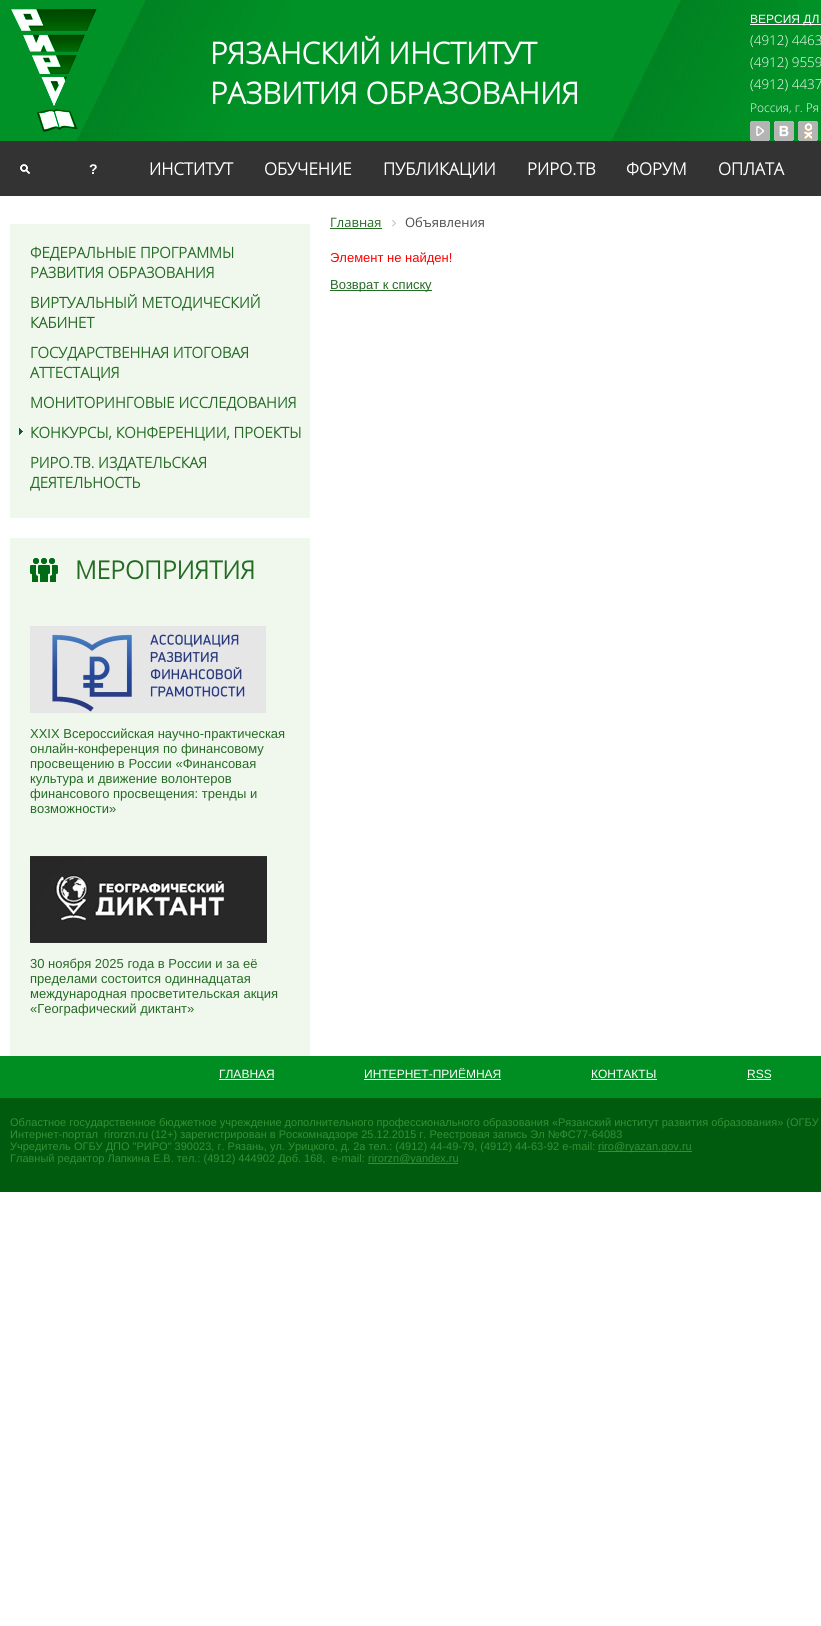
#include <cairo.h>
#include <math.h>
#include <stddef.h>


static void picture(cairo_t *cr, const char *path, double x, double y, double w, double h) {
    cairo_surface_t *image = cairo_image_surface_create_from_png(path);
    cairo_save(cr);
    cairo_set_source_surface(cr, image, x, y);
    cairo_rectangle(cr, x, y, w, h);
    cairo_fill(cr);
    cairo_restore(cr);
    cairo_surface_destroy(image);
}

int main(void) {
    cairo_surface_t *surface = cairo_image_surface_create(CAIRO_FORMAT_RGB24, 821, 1626);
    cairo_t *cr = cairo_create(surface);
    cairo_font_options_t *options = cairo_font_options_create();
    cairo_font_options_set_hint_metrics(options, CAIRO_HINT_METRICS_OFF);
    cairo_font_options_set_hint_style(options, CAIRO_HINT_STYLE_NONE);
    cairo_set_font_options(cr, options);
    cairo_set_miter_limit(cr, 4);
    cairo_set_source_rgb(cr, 1, 1, 1);
    cairo_paint(cr);
    picture(cr, "img1.png", 0, 0, 411, 196);
    picture(cr, "img2.png", 411, 0, 410, 196);
    picture(cr, "img3.png", 72, 0, 726, 142);
    picture(cr, "img4.png", 10, 9, 87, 123);
    cairo_select_font_face(cr, "Open Sans", CAIRO_FONT_SLANT_NORMAL, CAIRO_FONT_WEIGHT_BOLD);
    cairo_set_font_size(cr, 30);
    cairo_set_source_rgb(cr, 1, 1, 1);
    cairo_move_to(cr, 210, 64);
    cairo_show_text(cr, "РЯЗАНСКИЙ ИНСТИТУТ");
    cairo_move_to(cr, 210, 104);
    cairo_show_text(cr, "РАЗВИТИЯ ОБРАЗОВАНИЯ");
    cairo_rectangle(cr, 750, 24, 71, 1);
    cairo_fill(cr);
    cairo_select_font_face(cr, "Liberation Sans", CAIRO_FONT_SLANT_NORMAL, CAIRO_FONT_WEIGHT_NORMAL);
    cairo_set_font_size(cr, 12);
    cairo_move_to(cr, 750, 23);
    cairo_show_text(cr, "ВЕРСИЯ ДЛ");
    cairo_select_font_face(cr, "Open Sans Light", CAIRO_FONT_SLANT_NORMAL, CAIRO_FONT_WEIGHT_NORMAL);
    cairo_set_font_size(cr, 13.5);
    cairo_move_to(cr, 750, 45);
    cairo_show_text(cr, "(4912) 4463");
    cairo_move_to(cr, 750, 67);
    cairo_show_text(cr, "(4912) 9559");
    cairo_move_to(cr, 750, 89);
    cairo_show_text(cr, "(4912) 4437");
    cairo_set_font_size(cr, 12);
    cairo_move_to(cr, 750, 112);
    cairo_show_text(cr, "Россия, г. Ря");
    picture(cr, "img5.png", 750, 121, 20, 20);
    picture(cr, "img6.png", 774, 121, 20, 20);
    picture(cr, "img7.png", 798, 121, 20, 20);
    picture(cr, "img8.png", 20, 164, 10, 10);
    cairo_select_font_face(cr, "Liberation Sans", CAIRO_FONT_SLANT_NORMAL, CAIRO_FONT_WEIGHT_BOLD);
    cairo_set_font_size(cr, 14);
    cairo_move_to(cr, 89, 174);
    cairo_show_text(cr, "?");
    cairo_select_font_face(cr, "Open Sans", CAIRO_FONT_SLANT_NORMAL, CAIRO_FONT_WEIGHT_BOLD);
    cairo_set_font_size(cr, 17);
    cairo_move_to(cr, 149, 175);
    cairo_show_text(cr, "ИНСТИТУТ");
    cairo_move_to(cr, 264, 175);
    cairo_show_text(cr, "ОБУЧЕНИЕ");
    cairo_move_to(cr, 383, 175);
    cairo_show_text(cr, "ПУБЛИКАЦИИ");
    cairo_set_source_rgb(cr, 0.2, 0.2, 0.2);
    cairo_rectangle(cr, 610, 141, 1, 1);
    cairo_fill(cr);
    cairo_set_source_rgb(cr, 1, 1, 1);
    cairo_move_to(cr, 527, 175);
    cairo_show_text(cr, "РИРО.ТВ");
    cairo_move_to(cr, 626, 175);
    cairo_show_text(cr, "ФОРУМ");
    cairo_move_to(cr, 718, 175);
    cairo_show_text(cr, "ОПЛАТА");
    cairo_set_source_rgb(cr, 0.941, 0.969, 0.929);
    cairo_rectangle(cr, 10, 224, 300, 294);
    cairo_fill(cr);
    cairo_set_font_size(cr, 15);
    cairo_set_source_rgb(cr, 0.141, 0.42, 0.141);
    cairo_move_to(cr, 30, 258);
    cairo_show_text(cr, "ФЕДЕРАЛЬНЫЕ ПРОГРАММЫ");
    cairo_move_to(cr, 30, 278);
    cairo_show_text(cr, "РАЗВИТИЯ ОБРАЗОВАНИЯ");
    cairo_move_to(cr, 30, 308);
    cairo_show_text(cr, "ВИРТУАЛЬНЫЙ МЕТОДИЧЕСКИЙ");
    cairo_move_to(cr, 30, 328);
    cairo_show_text(cr, "КАБИНЕТ");
    cairo_move_to(cr, 30, 358);
    cairo_show_text(cr, "ГОСУДАРСТВЕННАЯ ИТОГОВАЯ");
    cairo_move_to(cr, 30, 378);
    cairo_show_text(cr, "АТТЕСТАЦИЯ");
    cairo_move_to(cr, 30, 408);
    cairo_show_text(cr, "МОНИТОРИНГОВЫЕ ИССЛЕДОВАНИЯ");
    picture(cr, "img9.png", 19, 428, 4, 7);
    cairo_move_to(cr, 30, 438);
    cairo_show_text(cr, "КОНКУРСЫ, КОНФЕРЕНЦИИ, ПРОЕКТЫ");
    cairo_move_to(cr, 30, 468);
    cairo_show_text(cr, "РИРО.ТВ. ИЗДАТЕЛЬСКАЯ");
    cairo_move_to(cr, 30, 488);
    cairo_show_text(cr, "ДЕЯТЕЛЬНОСТЬ");
    cairo_set_source_rgb(cr, 0.941, 0.969, 0.929);
    cairo_rectangle(cr, 10, 538, 300, 518);
    cairo_fill(cr);
    picture(cr, "img10.png", 30, 558, 28, 24);
    cairo_set_font_size(cr, 25);
    cairo_set_source_rgb(cr, 0.141, 0.42, 0.141);
    cairo_move_to(cr, 75, 579);
    cairo_show_text(cr, "МЕРОПРИЯТИЯ");
    picture(cr, "img11.png", 30, 626, 236, 87);
    cairo_select_font_face(cr, "Liberation Sans", CAIRO_FONT_SLANT_NORMAL, CAIRO_FONT_WEIGHT_NORMAL);
    cairo_set_font_size(cr, 13);
    cairo_move_to(cr, 30, 738);
    cairo_show_text(cr, "XXIX Всероссийская научно-практическая");
    cairo_move_to(cr, 30, 753);
    cairo_show_text(cr, "онлайн-конференция по финансовому");
    cairo_move_to(cr, 30, 768);
    cairo_show_text(cr, "просвещению в России «Финансовая");
    cairo_move_to(cr, 30, 783);
    cairo_show_text(cr, "культура и движение волонтеров");
    cairo_move_to(cr, 30, 798);
    cairo_show_text(cr, "финансового просвещения: тренды и");
    cairo_move_to(cr, 30, 813);
    cairo_show_text(cr, "возможности»");
    picture(cr, "img12.png", 30, 856, 237, 87);
    cairo_move_to(cr, 30, 968);
    cairo_show_text(cr, "30 ноября 2025 года в России и за её");
    cairo_move_to(cr, 30, 983);
    cairo_show_text(cr, "пределами состоится одиннадцатая");
    cairo_move_to(cr, 30, 998);
    cairo_show_text(cr, "международная просветительская акция");
    cairo_move_to(cr, 30, 1013);
    cairo_show_text(cr, "«Географический диктант»");
    cairo_select_font_face(cr, "Open Sans", CAIRO_FONT_SLANT_NORMAL, CAIRO_FONT_WEIGHT_NORMAL);
    cairo_move_to(cr, 330, 227);
    cairo_show_text(cr, "Главная");
    cairo_rectangle(cr, 330, 228, 52, 1);
    cairo_fill(cr);
    picture(cr, "img13.png", 392, 219, 4, 8);
    cairo_set_source_rgb(cr, 0.294, 0.294, 0.294);
    cairo_move_to(cr, 405, 227);
    cairo_show_text(cr, "Объявления");
    cairo_select_font_face(cr, "Liberation Sans", CAIRO_FONT_SLANT_NORMAL, CAIRO_FONT_WEIGHT_NORMAL);
    cairo_set_source_rgb(cr, 1, 0, 0);
    cairo_move_to(cr, 330, 262);
    cairo_show_text(cr, "Элемент не найден!");
    cairo_set_source_rgb(cr, 0.141, 0.42, 0.141);
    cairo_rectangle(cr, 330, 290, 102, 1);
    cairo_fill(cr);
    cairo_move_to(cr, 330, 289);
    cairo_show_text(cr, "Возврат к списку");
    picture(cr, "img14.png", 0, 1056, 821, 136);
    cairo_set_font_size(cr, 12);
    cairo_set_source_rgb(cr, 1, 1, 1);
    cairo_move_to(cr, 219, 1078);
    cairo_show_text(cr, "ГЛАВНАЯ");
    cairo_rectangle(cr, 219, 1079, 55, 1);
    cairo_fill(cr);
    cairo_move_to(cr, 364, 1078);
    cairo_show_text(cr, "ИНТЕРНЕТ-ПРИЁМНАЯ");
    cairo_rectangle(cr, 364, 1079, 137, 1);
    cairo_fill(cr);
    cairo_move_to(cr, 591, 1078);
    cairo_show_text(cr, "КОНТАКТЫ");
    cairo_rectangle(cr, 591, 1079, 66, 1);
    cairo_fill(cr);
    cairo_move_to(cr, 747, 1078);
    cairo_show_text(cr, "RSS");
    cairo_rectangle(cr, 747, 1079, 24, 1);
    cairo_fill(cr);
    cairo_set_font_size(cr, 11);
    cairo_set_source_rgb(cr, 0.204, 0.569, 0.204);
    cairo_move_to(cr, 10, 1126);
    cairo_show_text(cr, "Областное государственное бюджетное учреждение дополнительного профессионального образования «Рязанский институт развития образования» (ОГБУ");
    cairo_move_to(cr, 10, 1138);
    cairo_show_text(cr, "Интернет-портал  rirorzn.ru (12+) зарегистрирован в Роскомнадзоре 25.12.2015 г. Реестровая запись Эл №ФС77-64083");
    cairo_move_to(cr, 10, 1150);
    cairo_show_text(cr, "Учредитель ОГБУ ДПО \"РИРО\" 390023, г. Рязань, ул. Урицкого, д. 2а тел.: (4912) 44-49-79, (4912) 44-63-92 e-mail:");
    cairo_rectangle(cr, 598, 1151, 94, 1);
    cairo_fill(cr);
    cairo_move_to(cr, 598, 1150);
    cairo_show_text(cr, "riro@ryazan.gov.ru");
    cairo_move_to(cr, 10, 1162);
    cairo_show_text(cr, "Главный редактор Лапкина Е.В. тел.: (4912) 444902 Доб. 168,  e-mail:");
    cairo_rectangle(cr, 368, 1163, 90, 1);
    cairo_fill(cr);
    cairo_move_to(cr, 368, 1162);
    cairo_show_text(cr, "rirorzn@yandex.ru");
    cairo_surface_write_to_png(surface, "page.png");
    cairo_font_options_destroy(options);
    cairo_destroy(cr);
    cairo_surface_destroy(surface);
    return 0;
}
